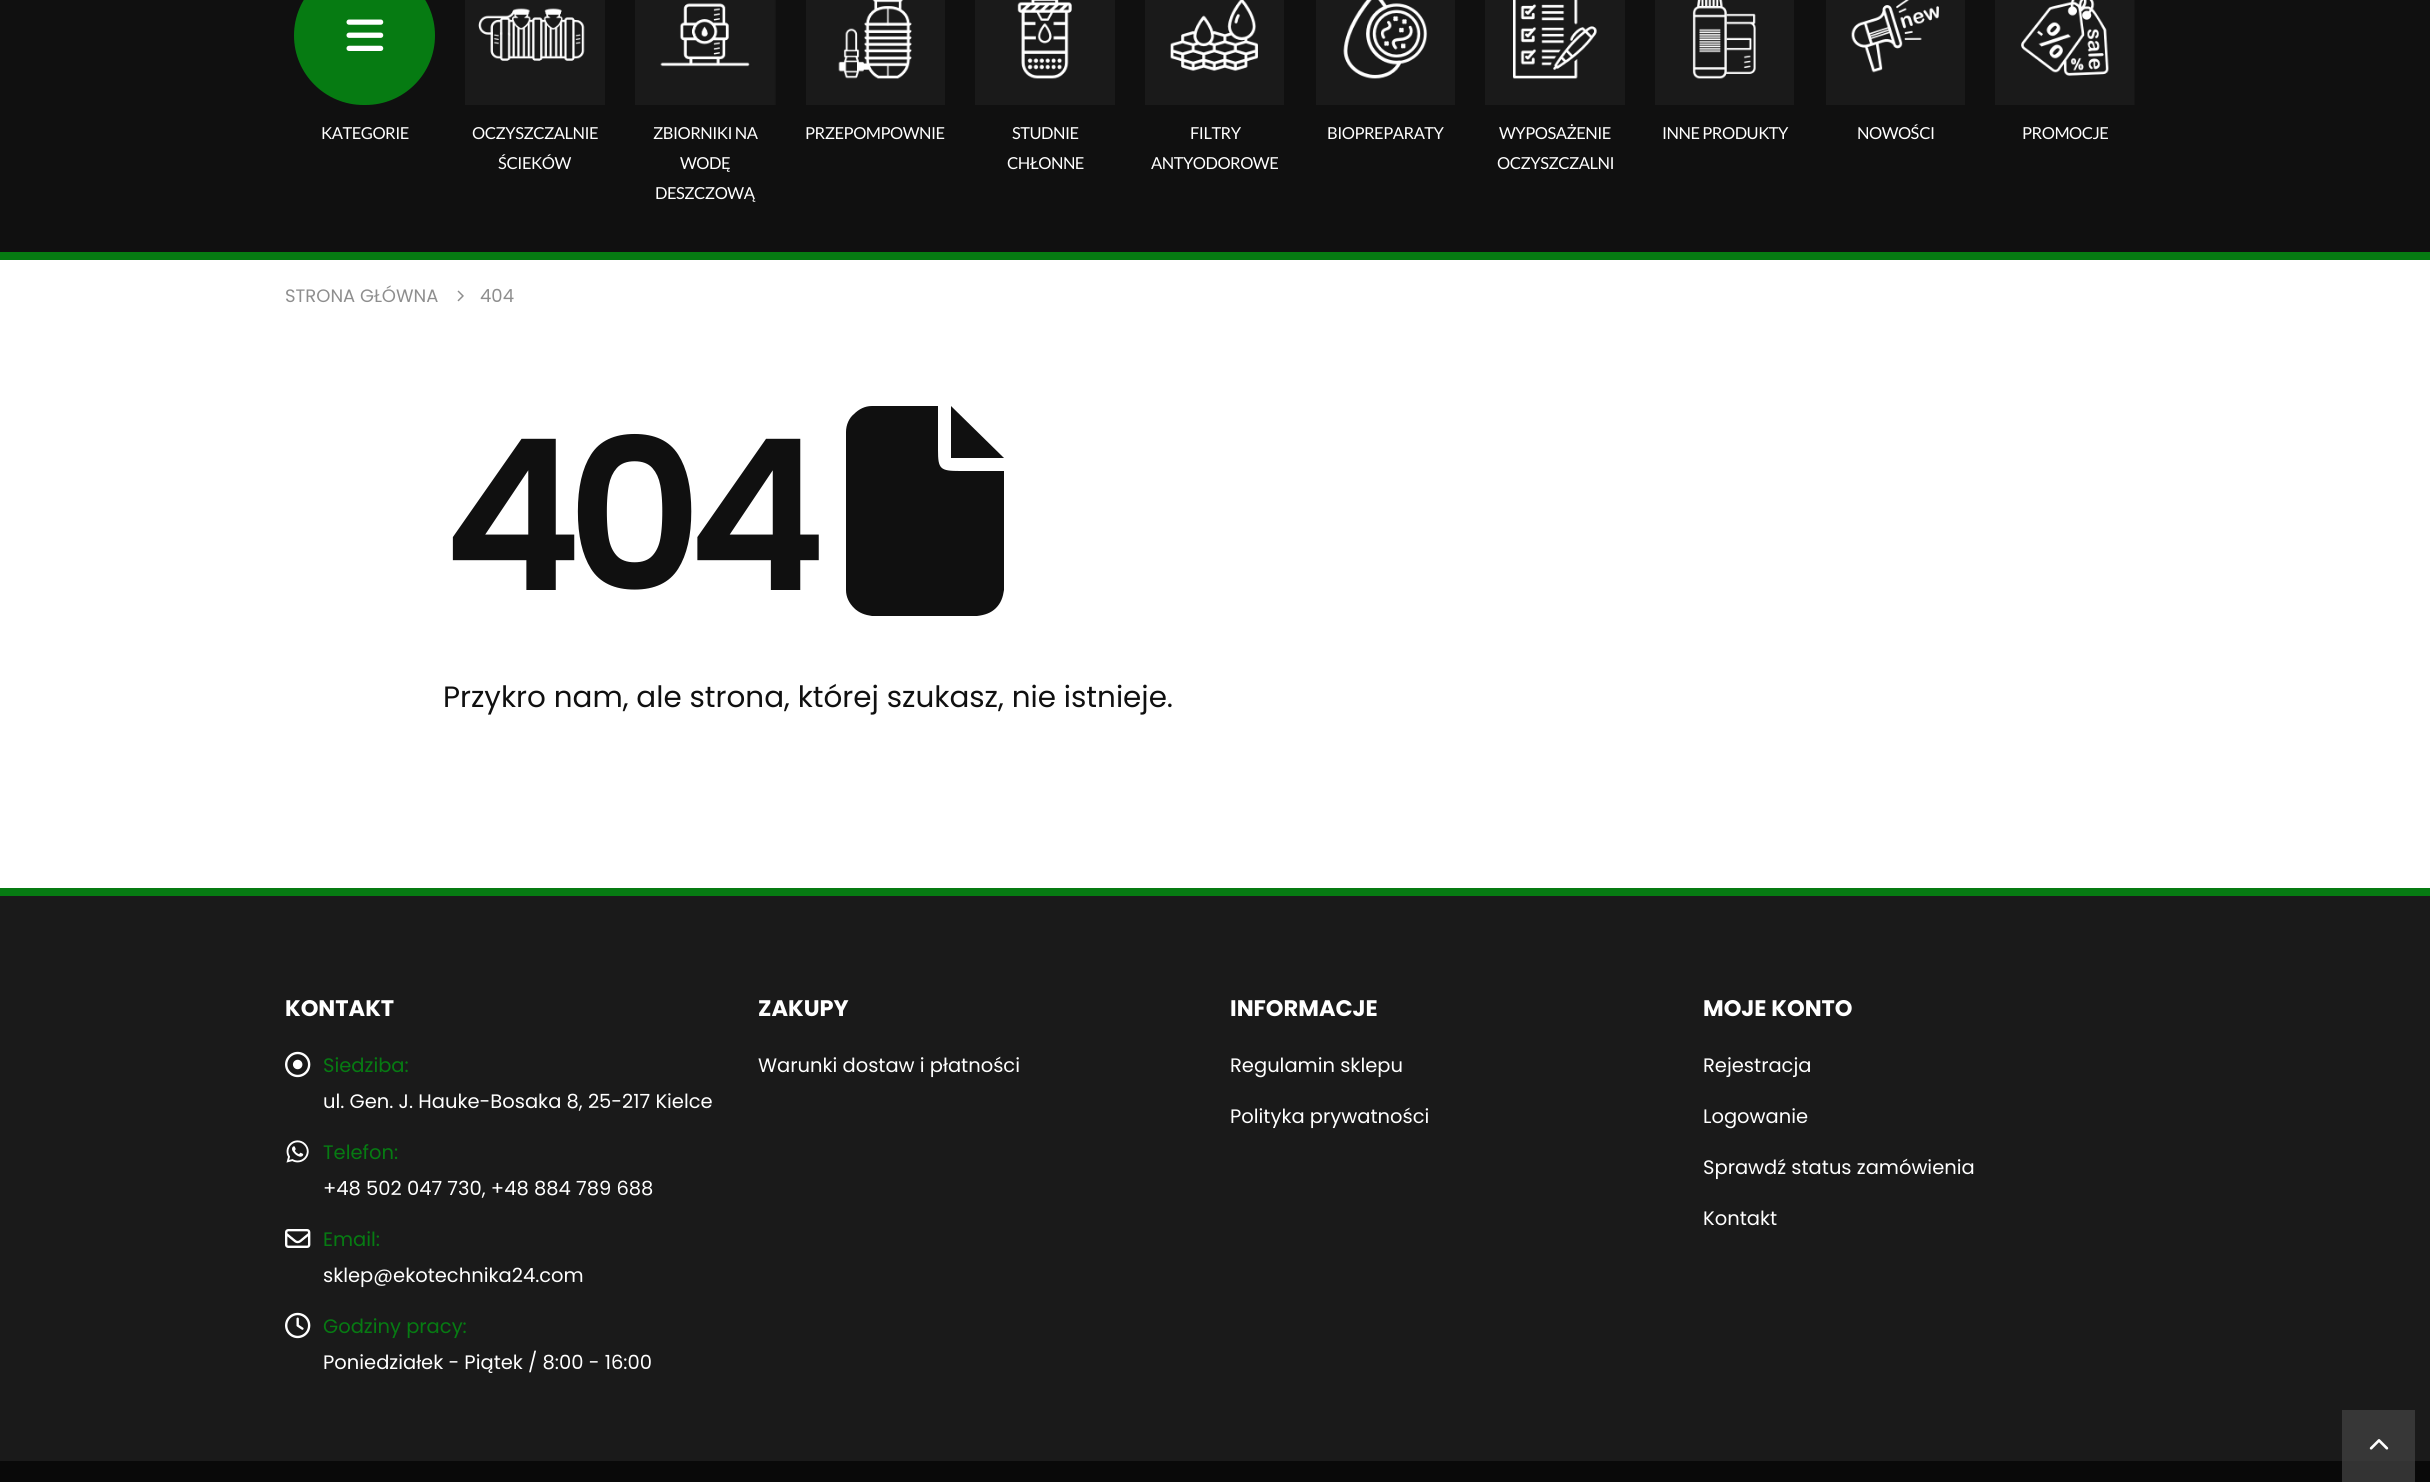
#include <cairo.h>
#include <math.h>
#include <stddef.h>


static void spaced_text(cairo_t *cr, double x, double y, const char *s, double letter, double word) {
    cairo_move_to(cr, x, y);
    while (*s) {
        char ch[5] = {0};
        int n = 0;
        do ch[n++] = *s++; while ((*s & 0xC0) == 0x80);
        cairo_show_text(cr, ch);
        cairo_rel_move_to(cr, letter + word * (*ch == ' '), 0);
    }
}

static void round_rect(cairo_t *cr, double x, double y, double w, double h, double r) {
    cairo_new_sub_path(cr);
    cairo_arc(cr, x + w - r, y + h - r, r, 0, M_PI / 2);
    cairo_arc(cr, x + r, y + h - r, r, M_PI / 2, M_PI);
    cairo_arc(cr, x + r, y + r, r, M_PI, 1.5 * M_PI);
    cairo_arc(cr, x + w - r, y + r, r, 1.5 * M_PI, 2 * M_PI);
    cairo_close_path(cr);
}

static void picture(cairo_t *cr, const char *path, double x, double y, double w, double h) {
    cairo_surface_t *image = cairo_image_surface_create_from_png(path);
    cairo_save(cr);
    cairo_set_source_surface(cr, image, x, y);
    cairo_rectangle(cr, x, y, w, h);
    cairo_fill(cr);
    cairo_restore(cr);
    cairo_surface_destroy(image);
}

int main(void) {
    cairo_surface_t *surface = cairo_image_surface_create(CAIRO_FORMAT_RGB24, 2430, 1482);
    cairo_t *cr = cairo_create(surface);
    cairo_font_options_t *options = cairo_font_options_create();
    cairo_font_options_set_hint_metrics(options, CAIRO_HINT_METRICS_OFF);
    cairo_font_options_set_hint_style(options, CAIRO_HINT_STYLE_NONE);
    cairo_set_font_options(cr, options);
    cairo_set_miter_limit(cr, 4);
    cairo_set_source_rgb(cr, 1, 1, 1);
    cairo_paint(cr);
    cairo_set_source_rgb(cr, 0.063, 0.063, 0.063);
    cairo_rectangle(cr, 0, 0, 2430, 252);
    cairo_fill(cr);
    cairo_set_source_rgb(cr, 0.027, 0.482, 0.071);
    cairo_rectangle(cr, 0, 252, 2430, 8);
    cairo_fill(cr);
    round_rect(cr, 294, -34, 141, 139, 69.5);
    cairo_fill(cr);
    picture(cr, "img1.png", 346, 19, 38, 32);
    cairo_select_font_face(cr, "Lato", CAIRO_FONT_SLANT_NORMAL, CAIRO_FONT_WEIGHT_NORMAL);
    cairo_set_font_size(cr, 16.5);
    cairo_set_source_rgb(cr, 1, 1, 1);
    spaced_text(cr, 321, 139, "KATEGORIE", -0.5, 0);
    picture(cr, "img2.png", 465, 0, 140, 105);
    spaced_text(cr, 472, 139, "OCZYSZCZALNIE", -0.5, 0);
    spaced_text(cr, 498, 169, "ŚCIEKÓW", -0.5, 0);
    picture(cr, "img3.png", 635, 0, 141, 105);
    spaced_text(cr, 653, 139, "ZBIORNIKI NA", -0.5, 0);
    spaced_text(cr, 680, 169, "WODĘ", -0.5, 0);
    spaced_text(cr, 655, 199, "DESZCZOWĄ", -0.5, 0);
    picture(cr, "img4.png", 806, 0, 139, 105);
    spaced_text(cr, 805, 139, "PRZEPOMPOWNIE", -0.5, 0);
    picture(cr, "img5.png", 975, 0, 140, 105);
    spaced_text(cr, 1012, 139, "STUDNIE", -0.5, 0);
    spaced_text(cr, 1007, 169, "CHŁONNE", -0.5, 0);
    picture(cr, "img6.png", 1145, 0, 139, 105);
    spaced_text(cr, 1190, 139, "FILTRY", -0.5, 0);
    spaced_text(cr, 1151, 169, "ANTYODOROWE", -0.5, 0);
    picture(cr, "img7.png", 1316, 0, 139, 105);
    spaced_text(cr, 1327, 139, "BIOPREPARATY", -0.5, 0);
    picture(cr, "img8.png", 1485, 0, 140, 105);
    spaced_text(cr, 1499, 139, "WYPOSAŻENIE", -0.5, 0);
    spaced_text(cr, 1497, 169, "OCZYSZCZALNI", -0.5, 0);
    picture(cr, "img9.png", 1655, 0, 139, 105);
    spaced_text(cr, 1662, 139, "INNE PRODUKTY", -0.5, 0);
    picture(cr, "img10.png", 1826, 0, 139, 105);
    spaced_text(cr, 1857, 139, "NOWOŚCI", -0.5, 0);
    picture(cr, "img11.png", 1995, 0, 140, 105);
    spaced_text(cr, 2022, 139, "PROMOCJE", -0.5, 0);
    cairo_select_font_face(cr, "Poppins", CAIRO_FONT_SLANT_NORMAL, CAIRO_FONT_WEIGHT_NORMAL);
    cairo_set_font_size(cr, 18);
    cairo_set_source_rgb(cr, 0.557, 0.557, 0.557);
    cairo_move_to(cr, 285, 302);
    cairo_show_text(cr, "STRONA GŁÓWNA");
    picture(cr, "img12.png", 457, 290, 7, 12);
    cairo_move_to(cr, 480, 302);
    cairo_show_text(cr, "404");
    cairo_select_font_face(cr, "Poppins SemiBold", CAIRO_FONT_SLANT_NORMAL, CAIRO_FONT_WEIGHT_NORMAL);
    cairo_set_font_size(cr, 210);
    cairo_set_source_rgb(cr, 0.063, 0.063, 0.063);
    spaced_text(cr, 443, 590, "404", -15, 0);
    cairo_new_path(cr);
    cairo_move_to(cr, 846, 432);
    cairo_curve_to(cr, 846, 425, 849, 418, 854, 414);
    cairo_curve_to(cr, 859, 409, 865, 406, 872, 406);
    cairo_line_to(cr, 938, 406);
    cairo_line_to(cr, 938, 450);
    cairo_curve_to(cr, 938, 469, 940, 471, 960, 471);
    cairo_line_to(cr, 1004, 471);
    cairo_line_to(cr, 1004, 590);
    cairo_curve_to(cr, 1003, 597, 1001, 603, 996, 608);
    cairo_curve_to(cr, 991, 613, 985, 615, 977, 616);
    cairo_line_to(cr, 872, 616);
    cairo_curve_to(cr, 865, 615, 859, 613, 854, 608);
    cairo_curve_to(cr, 849, 603, 846, 597, 846, 590);
    cairo_close_path(cr);
    cairo_move_to(cr, 1004, 458);
    cairo_line_to(cr, 951, 458);
    cairo_line_to(cr, 951, 406);
    cairo_close_path(cr);
    cairo_fill(cr);
    cairo_select_font_face(cr, "Poppins", CAIRO_FONT_SLANT_NORMAL, CAIRO_FONT_WEIGHT_NORMAL);
    cairo_set_font_size(cr, 29.4);
    cairo_move_to(cr, 443, 707);
    cairo_show_text(cr, "Przykro nam, ale strona, której szukasz, nie istnieje.");
    cairo_set_source_rgb(cr, 0.027, 0.482, 0.071);
    cairo_rectangle(cr, 0, 888, 2430, 8);
    cairo_fill(cr);
    cairo_set_source_rgb(cr, 0.102, 0.102, 0.102);
    cairo_rectangle(cr, 0, 896, 2430, 565);
    cairo_fill(cr);
    cairo_set_source_rgb(cr, 0.216, 0.216, 0.216);
    cairo_rectangle(cr, 2342, 1410, 73, 51);
    cairo_fill(cr);
    cairo_select_font_face(cr, "Poppins", CAIRO_FONT_SLANT_NORMAL, CAIRO_FONT_WEIGHT_BOLD);
    cairo_set_font_size(cr, 22.5);
    cairo_set_source_rgb(cr, 1, 1, 1);
    cairo_move_to(cr, 285, 1016);
    cairo_show_text(cr, "KONTAKT");
    picture(cr, "img13.png", 285, 1051, 26, 27);
    cairo_select_font_face(cr, "Poppins", CAIRO_FONT_SLANT_NORMAL, CAIRO_FONT_WEIGHT_NORMAL);
    cairo_set_font_size(cr, 19.5);
    cairo_set_source_rgb(cr, 0.027, 0.482, 0.071);
    cairo_move_to(cr, 323, 1072);
    cairo_show_text(cr, "Siedziba:");
    cairo_set_source_rgb(cr, 1, 1, 1);
    cairo_move_to(cr, 323, 1108);
    cairo_show_text(cr, "ul. Gen. J. Hauke-Bosaka 8, 25-217 Kielce");
    picture(cr, "img14.png", 286, 1140, 23, 23);
    cairo_set_source_rgb(cr, 0.027, 0.482, 0.071);
    cairo_move_to(cr, 323, 1159);
    cairo_show_text(cr, "Telefon:");
    cairo_set_source_rgb(cr, 1, 1, 1);
    cairo_move_to(cr, 323, 1195);
    cairo_show_text(cr, "+48 502 047 730, +48 884 789 688");
    picture(cr, "img15.png", 285, 1229, 26, 19);
    cairo_set_source_rgb(cr, 0.027, 0.482, 0.071);
    cairo_move_to(cr, 323, 1246);
    cairo_show_text(cr, "Email:");
    cairo_set_source_rgb(cr, 1, 1, 1);
    cairo_move_to(cr, 323, 1282);
    cairo_show_text(cr, "sklep@ekotechnika24.com");
    picture(cr, "img16.png", 285, 1312, 26, 27);
    cairo_set_source_rgb(cr, 0.027, 0.482, 0.071);
    cairo_move_to(cr, 323, 1333);
    cairo_show_text(cr, "Godziny pracy:");
    cairo_set_source_rgb(cr, 1, 1, 1);
    cairo_move_to(cr, 323, 1369);
    cairo_show_text(cr, "Poniedziałek - Piątek / 8:00 - 16:00");
    cairo_select_font_face(cr, "Poppins", CAIRO_FONT_SLANT_NORMAL, CAIRO_FONT_WEIGHT_BOLD);
    cairo_set_font_size(cr, 22.5);
    cairo_move_to(cr, 758, 1016);
    cairo_show_text(cr, "ZAKUPY");
    cairo_select_font_face(cr, "Poppins", CAIRO_FONT_SLANT_NORMAL, CAIRO_FONT_WEIGHT_NORMAL);
    cairo_set_font_size(cr, 19.5);
    cairo_move_to(cr, 758, 1072);
    cairo_show_text(cr, "Warunki dostaw i płatności");
    cairo_select_font_face(cr, "Poppins", CAIRO_FONT_SLANT_NORMAL, CAIRO_FONT_WEIGHT_BOLD);
    cairo_set_font_size(cr, 22.5);
    cairo_move_to(cr, 1230, 1016);
    cairo_show_text(cr, "INFORMACJE");
    cairo_select_font_face(cr, "Poppins", CAIRO_FONT_SLANT_NORMAL, CAIRO_FONT_WEIGHT_NORMAL);
    cairo_set_font_size(cr, 19.5);
    cairo_move_to(cr, 1230, 1072);
    cairo_show_text(cr, "Regulamin sklepu");
    cairo_move_to(cr, 1230, 1123);
    cairo_show_text(cr, "Polityka prywatności");
    cairo_select_font_face(cr, "Poppins", CAIRO_FONT_SLANT_NORMAL, CAIRO_FONT_WEIGHT_BOLD);
    cairo_set_font_size(cr, 22.5);
    cairo_move_to(cr, 1703, 1016);
    cairo_show_text(cr, "MOJE KONTO");
    cairo_select_font_face(cr, "Poppins", CAIRO_FONT_SLANT_NORMAL, CAIRO_FONT_WEIGHT_NORMAL);
    cairo_set_font_size(cr, 19.5);
    cairo_move_to(cr, 1703, 1072);
    cairo_show_text(cr, "Rejestracja");
    cairo_move_to(cr, 1703, 1123);
    cairo_show_text(cr, "Logowanie");
    cairo_move_to(cr, 1703, 1174);
    cairo_show_text(cr, "Sprawdź status zamówienia");
    cairo_move_to(cr, 1703, 1225);
    cairo_show_text(cr, "Kontakt");
    cairo_set_source_rgb(cr, 0.039, 0.039, 0.039);
    cairo_rectangle(cr, 0, 1461, 2430, 21);
    cairo_fill(cr);
    cairo_set_source_rgb(cr, 0.2, 0.2, 0.2);
    cairo_rectangle(cr, 2342, 1461, 73, 21);
    cairo_fill(cr);
    picture(cr, "img17.png", 2369, 1439, 20, 11);
    cairo_surface_write_to_png(surface, "page.png");
    cairo_font_options_destroy(options);
    cairo_destroy(cr);
    cairo_surface_destroy(surface);
    return 0;
}
